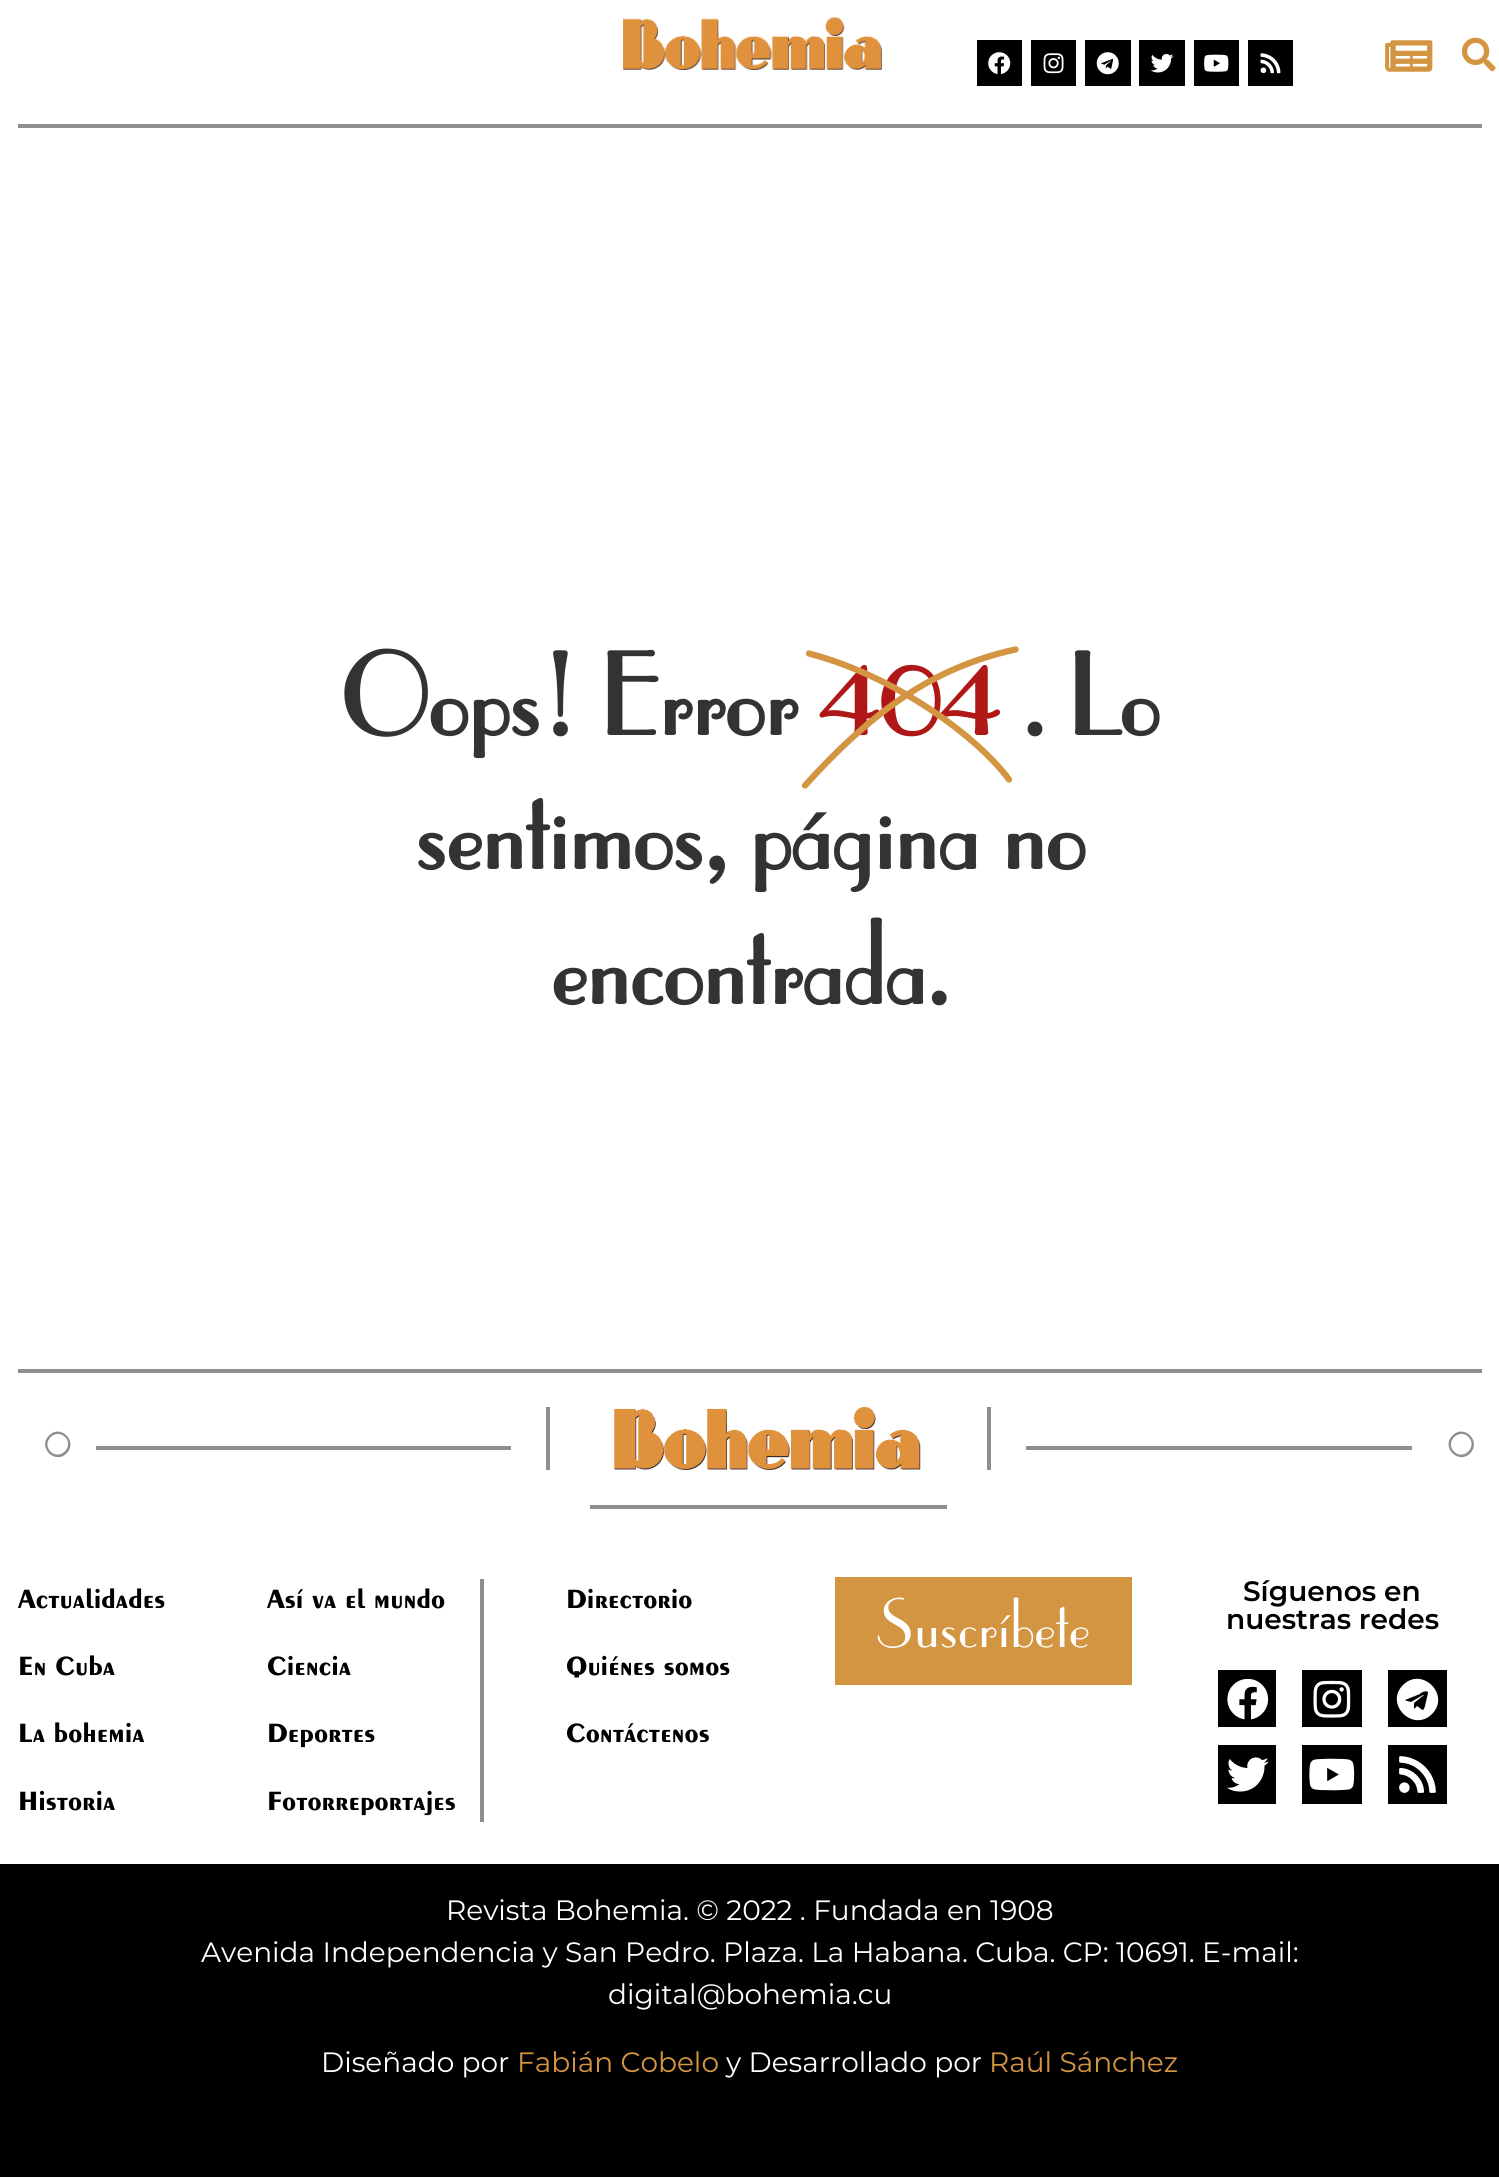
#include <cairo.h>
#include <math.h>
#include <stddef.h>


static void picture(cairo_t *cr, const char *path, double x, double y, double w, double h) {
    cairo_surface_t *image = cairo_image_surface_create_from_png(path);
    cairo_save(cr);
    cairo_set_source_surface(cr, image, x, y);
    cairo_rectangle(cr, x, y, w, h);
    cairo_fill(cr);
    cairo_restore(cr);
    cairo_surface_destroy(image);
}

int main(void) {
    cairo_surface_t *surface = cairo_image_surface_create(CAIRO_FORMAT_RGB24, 1499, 2180);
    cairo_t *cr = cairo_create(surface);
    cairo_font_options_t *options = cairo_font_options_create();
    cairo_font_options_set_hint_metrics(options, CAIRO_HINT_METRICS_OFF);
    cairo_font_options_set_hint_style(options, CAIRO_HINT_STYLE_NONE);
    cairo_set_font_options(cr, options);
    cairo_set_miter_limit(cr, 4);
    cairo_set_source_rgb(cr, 1, 1, 1);
    cairo_paint(cr);
    picture(cr, "img1.png", 623, 17, 259, 53);
    cairo_set_source_rgb(cr, 0, 0, 0);
    cairo_rectangle(cr, 977, 40, 45, 46);
    cairo_fill(cr);
    picture(cr, "img2.png", 988, 52, 23, 22);
    cairo_rectangle(cr, 1031, 40, 45, 46);
    cairo_fill(cr);
    picture(cr, "img3.png", 1043, 53, 21, 21);
    cairo_rectangle(cr, 1085, 40, 46, 46);
    cairo_fill(cr);
    picture(cr, "img4.png", 1096, 52, 23, 23);
    cairo_rectangle(cr, 1139, 40, 46, 46);
    cairo_fill(cr);
    picture(cr, "img5.png", 1150, 54, 24, 19);
    cairo_rectangle(cr, 1194, 40, 45, 46);
    cairo_fill(cr);
    picture(cr, "img6.png", 1204, 54, 25, 18);
    cairo_rectangle(cr, 1248, 40, 45, 46);
    cairo_fill(cr);
    picture(cr, "img7.png", 1260, 53, 21, 21);
    picture(cr, "img8.png", 1385, 40, 48, 32);
    picture(cr, "img9.png", 1461, 37, 35, 35);
    cairo_set_source_rgb(cr, 0.557, 0.557, 0.557);
    cairo_rectangle(cr, 18, 124, 1464, 4);
    cairo_fill(cr);
    cairo_select_font_face(cr, "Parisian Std", CAIRO_FONT_SLANT_NORMAL, CAIRO_FONT_WEIGHT_BOLD);
    cairo_set_font_size(cr, 112);
    cairo_set_source_rgb(cr, 0.2, 0.2, 0.2);
    cairo_move_to(cr, 341, 735);
    cairo_show_text(cr, "Oops! Error");
    cairo_set_source_rgb(cr, 0.69, 0.094, 0.094);
    cairo_move_to(cr, 820, 735);
    cairo_show_text(cr, "404");
    cairo_new_path(cr);
    cairo_move_to(cr, 1015.5, 649.5);
    cairo_curve_to(cr, 932, 667.5, 870, 713.5, 805, 785.5);
    cairo_set_source_rgb(cr, 0.831, 0.584, 0.259);
    cairo_set_line_width(cr, 6.3);
    cairo_set_line_cap(cr, CAIRO_LINE_CAP_ROUND);
    cairo_set_line_join(cr, CAIRO_LINE_JOIN_ROUND);
    cairo_stroke(cr);
    cairo_new_path(cr);
    cairo_move_to(cr, 809, 653.5);
    cairo_curve_to(cr, 896.5, 676.5, 977.5, 737, 1009, 779.5);
    cairo_stroke(cr);
    cairo_set_source_rgb(cr, 0.2, 0.2, 0.2);
    cairo_move_to(cr, 1022, 735);
    cairo_show_text(cr, ". Lo");
    cairo_move_to(cr, 415, 869);
    cairo_show_text(cr, "sentimos, página no");
    cairo_move_to(cr, 551, 1004);
    cairo_show_text(cr, "encontrada.");
    cairo_set_source_rgb(cr, 0.557, 0.557, 0.557);
    cairo_rectangle(cr, 18, 1369, 1464, 4);
    cairo_fill(cr);
    cairo_new_path(cr);
    cairo_move_to(cr, 49, 1435.5);
    cairo_curve_to(cr, 60.5, 1423.5, 78.5, 1441.5, 66.5, 1453.5);
    cairo_curve_to(cr, 55, 1465, 37, 1447, 49, 1435.5);
    cairo_close_path(cr);
    cairo_move_to(cr, 50.5, 1451.5);
    cairo_curve_to(cr, 60, 1461, 74.5, 1446.5, 65, 1437);
    cairo_curve_to(cr, 55.5, 1427.5, 41, 1442, 50.5, 1451.5);
    cairo_close_path(cr);
    cairo_fill(cr);
    cairo_rectangle(cr, 96, 1446, 415, 4);
    cairo_fill(cr);
    cairo_rectangle(cr, 987, 1407, 4, 63);
    cairo_fill(cr);
    cairo_rectangle(cr, 546, 1407, 4, 63);
    cairo_fill(cr);
    picture(cr, "img10.png", 614, 1407, 307, 63);
    cairo_rectangle(cr, 590, 1505, 357, 4);
    cairo_fill(cr);
    cairo_rectangle(cr, 1026, 1446, 386, 4);
    cairo_fill(cr);
    cairo_new_path(cr);
    cairo_move_to(cr, 1452.5, 1435.5);
    cairo_curve_to(cr, 1464, 1423.5, 1482, 1441.5, 1470, 1453.5);
    cairo_curve_to(cr, 1458.5, 1465, 1440.5, 1447, 1452.5, 1435.5);
    cairo_close_path(cr);
    cairo_move_to(cr, 1454, 1451.5);
    cairo_curve_to(cr, 1463.5, 1461, 1478, 1446.5, 1468.5, 1437);
    cairo_curve_to(cr, 1459, 1427.5, 1444.5, 1442, 1454, 1451.5);
    cairo_close_path(cr);
    cairo_fill(cr);
    cairo_select_font_face(cr, "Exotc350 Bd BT", CAIRO_FONT_SLANT_NORMAL, CAIRO_FONT_WEIGHT_BOLD);
    cairo_set_font_size(cr, 28);
    cairo_set_source_rgb(cr, 0, 0, 0);
    cairo_move_to(cr, 18, 1608);
    cairo_show_text(cr, "Actualidades");
    cairo_move_to(cr, 18, 1675);
    cairo_show_text(cr, "En Cuba");
    cairo_move_to(cr, 18, 1742);
    cairo_show_text(cr, "La bohemia");
    cairo_move_to(cr, 18, 1810);
    cairo_show_text(cr, "Historia");
    cairo_set_source_rgb(cr, 0.557, 0.557, 0.557);
    cairo_rectangle(cr, 480, 1579, 4, 243);
    cairo_fill(cr);
    cairo_set_source_rgb(cr, 0, 0, 0);
    cairo_move_to(cr, 267, 1608);
    cairo_show_text(cr, "Así va el mundo");
    cairo_move_to(cr, 267, 1675);
    cairo_show_text(cr, "Ciencia");
    cairo_move_to(cr, 267, 1742);
    cairo_show_text(cr, "Deportes");
    cairo_move_to(cr, 267, 1810);
    cairo_show_text(cr, "Fotorreportajes");
    cairo_move_to(cr, 566, 1608);
    cairo_show_text(cr, "Directorio");
    cairo_move_to(cr, 566, 1675);
    cairo_show_text(cr, "Quiénes somos");
    cairo_move_to(cr, 566, 1742);
    cairo_show_text(cr, "Contáctenos");
    cairo_set_source_rgb(cr, 0.831, 0.584, 0.259);
    cairo_rectangle(cr, 835, 1577, 297, 108);
    cairo_fill(cr);
    cairo_select_font_face(cr, "Parisian Std Medium", CAIRO_FONT_SLANT_NORMAL, CAIRO_FONT_WEIGHT_NORMAL);
    cairo_set_font_size(cr, 66.5);
    cairo_set_source_rgb(cr, 1, 1, 1);
    cairo_move_to(cr, 877, 1647);
    cairo_show_text(cr, "Suscríbete");
    cairo_select_font_face(cr, "Montserrat SemiBold", CAIRO_FONT_SLANT_NORMAL, CAIRO_FONT_WEIGHT_NORMAL);
    cairo_set_font_size(cr, 28);
    cairo_set_source_rgb(cr, 0, 0, 0);
    cairo_move_to(cr, 1243, 1601);
    cairo_show_text(cr, "Síguenos en");
    cairo_move_to(cr, 1226, 1629);
    cairo_show_text(cr, "nuestras redes");
    cairo_rectangle(cr, 1218, 1670, 58, 57);
    cairo_fill(cr);
    picture(cr, "img11.png", 1227, 1678, 42, 42);
    cairo_rectangle(cr, 1302, 1670, 60, 57);
    cairo_fill(cr);
    picture(cr, "img12.png", 1313, 1680, 38, 38);
    cairo_rectangle(cr, 1388, 1670, 59, 57);
    cairo_fill(cr);
    cairo_set_source_rgb(cr, 1, 1, 1);
    cairo_new_path(cr);
    cairo_move_to(cr, 1403, 1685);
    cairo_curve_to(cr, 1422, 1666, 1451, 1695, 1432, 1714);
    cairo_curve_to(cr, 1413, 1733, 1384, 1704, 1403, 1685);
    cairo_close_path(cr);
    cairo_move_to(cr, 1428, 1693);
    cairo_curve_to(cr, 1428, 1689, 1420, 1693, 1420, 1694);
    cairo_line_to(cr, 1410, 1698);
    cairo_curve_to(cr, 1402, 1701, 1405, 1700, 1411, 1702);
    cairo_line_to(cr, 1423, 1695);
    cairo_line_to(cr, 1424, 1695);
    cairo_line_to(cr, 1414, 1703);
    cairo_line_to(cr, 1414, 1709);
    cairo_line_to(cr, 1417, 1706);
    cairo_curve_to(cr, 1422, 1709, 1423, 1713, 1425, 1706);
    cairo_close_path(cr);
    cairo_fill(cr);
    cairo_set_source_rgb(cr, 0, 0, 0);
    cairo_rectangle(cr, 1218, 1745, 58, 59);
    cairo_fill(cr);
    picture(cr, "img13.png", 1227, 1757, 42, 35);
    cairo_rectangle(cr, 1302, 1745, 60, 59);
    cairo_fill(cr);
    picture(cr, "img14.png", 1309, 1758, 46, 33);
    cairo_rectangle(cr, 1388, 1745, 59, 59);
    cairo_fill(cr);
    picture(cr, "img15.png", 1399, 1756, 37, 37);
    cairo_rectangle(cr, 0, 1864, 1499, 313);
    cairo_fill(cr);
    cairo_select_font_face(cr, "Montserrat", CAIRO_FONT_SLANT_NORMAL, CAIRO_FONT_WEIGHT_NORMAL);
    cairo_set_source_rgb(cr, 1, 1, 1);
    cairo_move_to(cr, 446, 1920);
    cairo_show_text(cr, "Revista Bohemia. © 2022 . Fundada en 1908");
    cairo_move_to(cr, 201, 1962);
    cairo_show_text(cr, "Avenida Independencia y San Pedro. Plaza. La Habana. Cuba. CP: 10691. E-mail:");
    cairo_move_to(cr, 608, 2004);
    cairo_show_text(cr, "digital@bohemia.cu");
    cairo_move_to(cr, 321, 2072);
    cairo_show_text(cr, "Diseñado por");
    cairo_set_source_rgb(cr, 0.831, 0.584, 0.259);
    cairo_move_to(cr, 517, 2072);
    cairo_show_text(cr, "Fabián Cobelo");
    cairo_set_source_rgb(cr, 1, 1, 1);
    cairo_move_to(cr, 726, 2072);
    cairo_show_text(cr, "y Desarrollado por");
    cairo_set_source_rgb(cr, 0.831, 0.584, 0.259);
    cairo_move_to(cr, 989, 2072);
    cairo_show_text(cr, "Raúl Sánchez");
    cairo_surface_write_to_png(surface, "page.png");
    cairo_font_options_destroy(options);
    cairo_destroy(cr);
    cairo_surface_destroy(surface);
    return 0;
}
